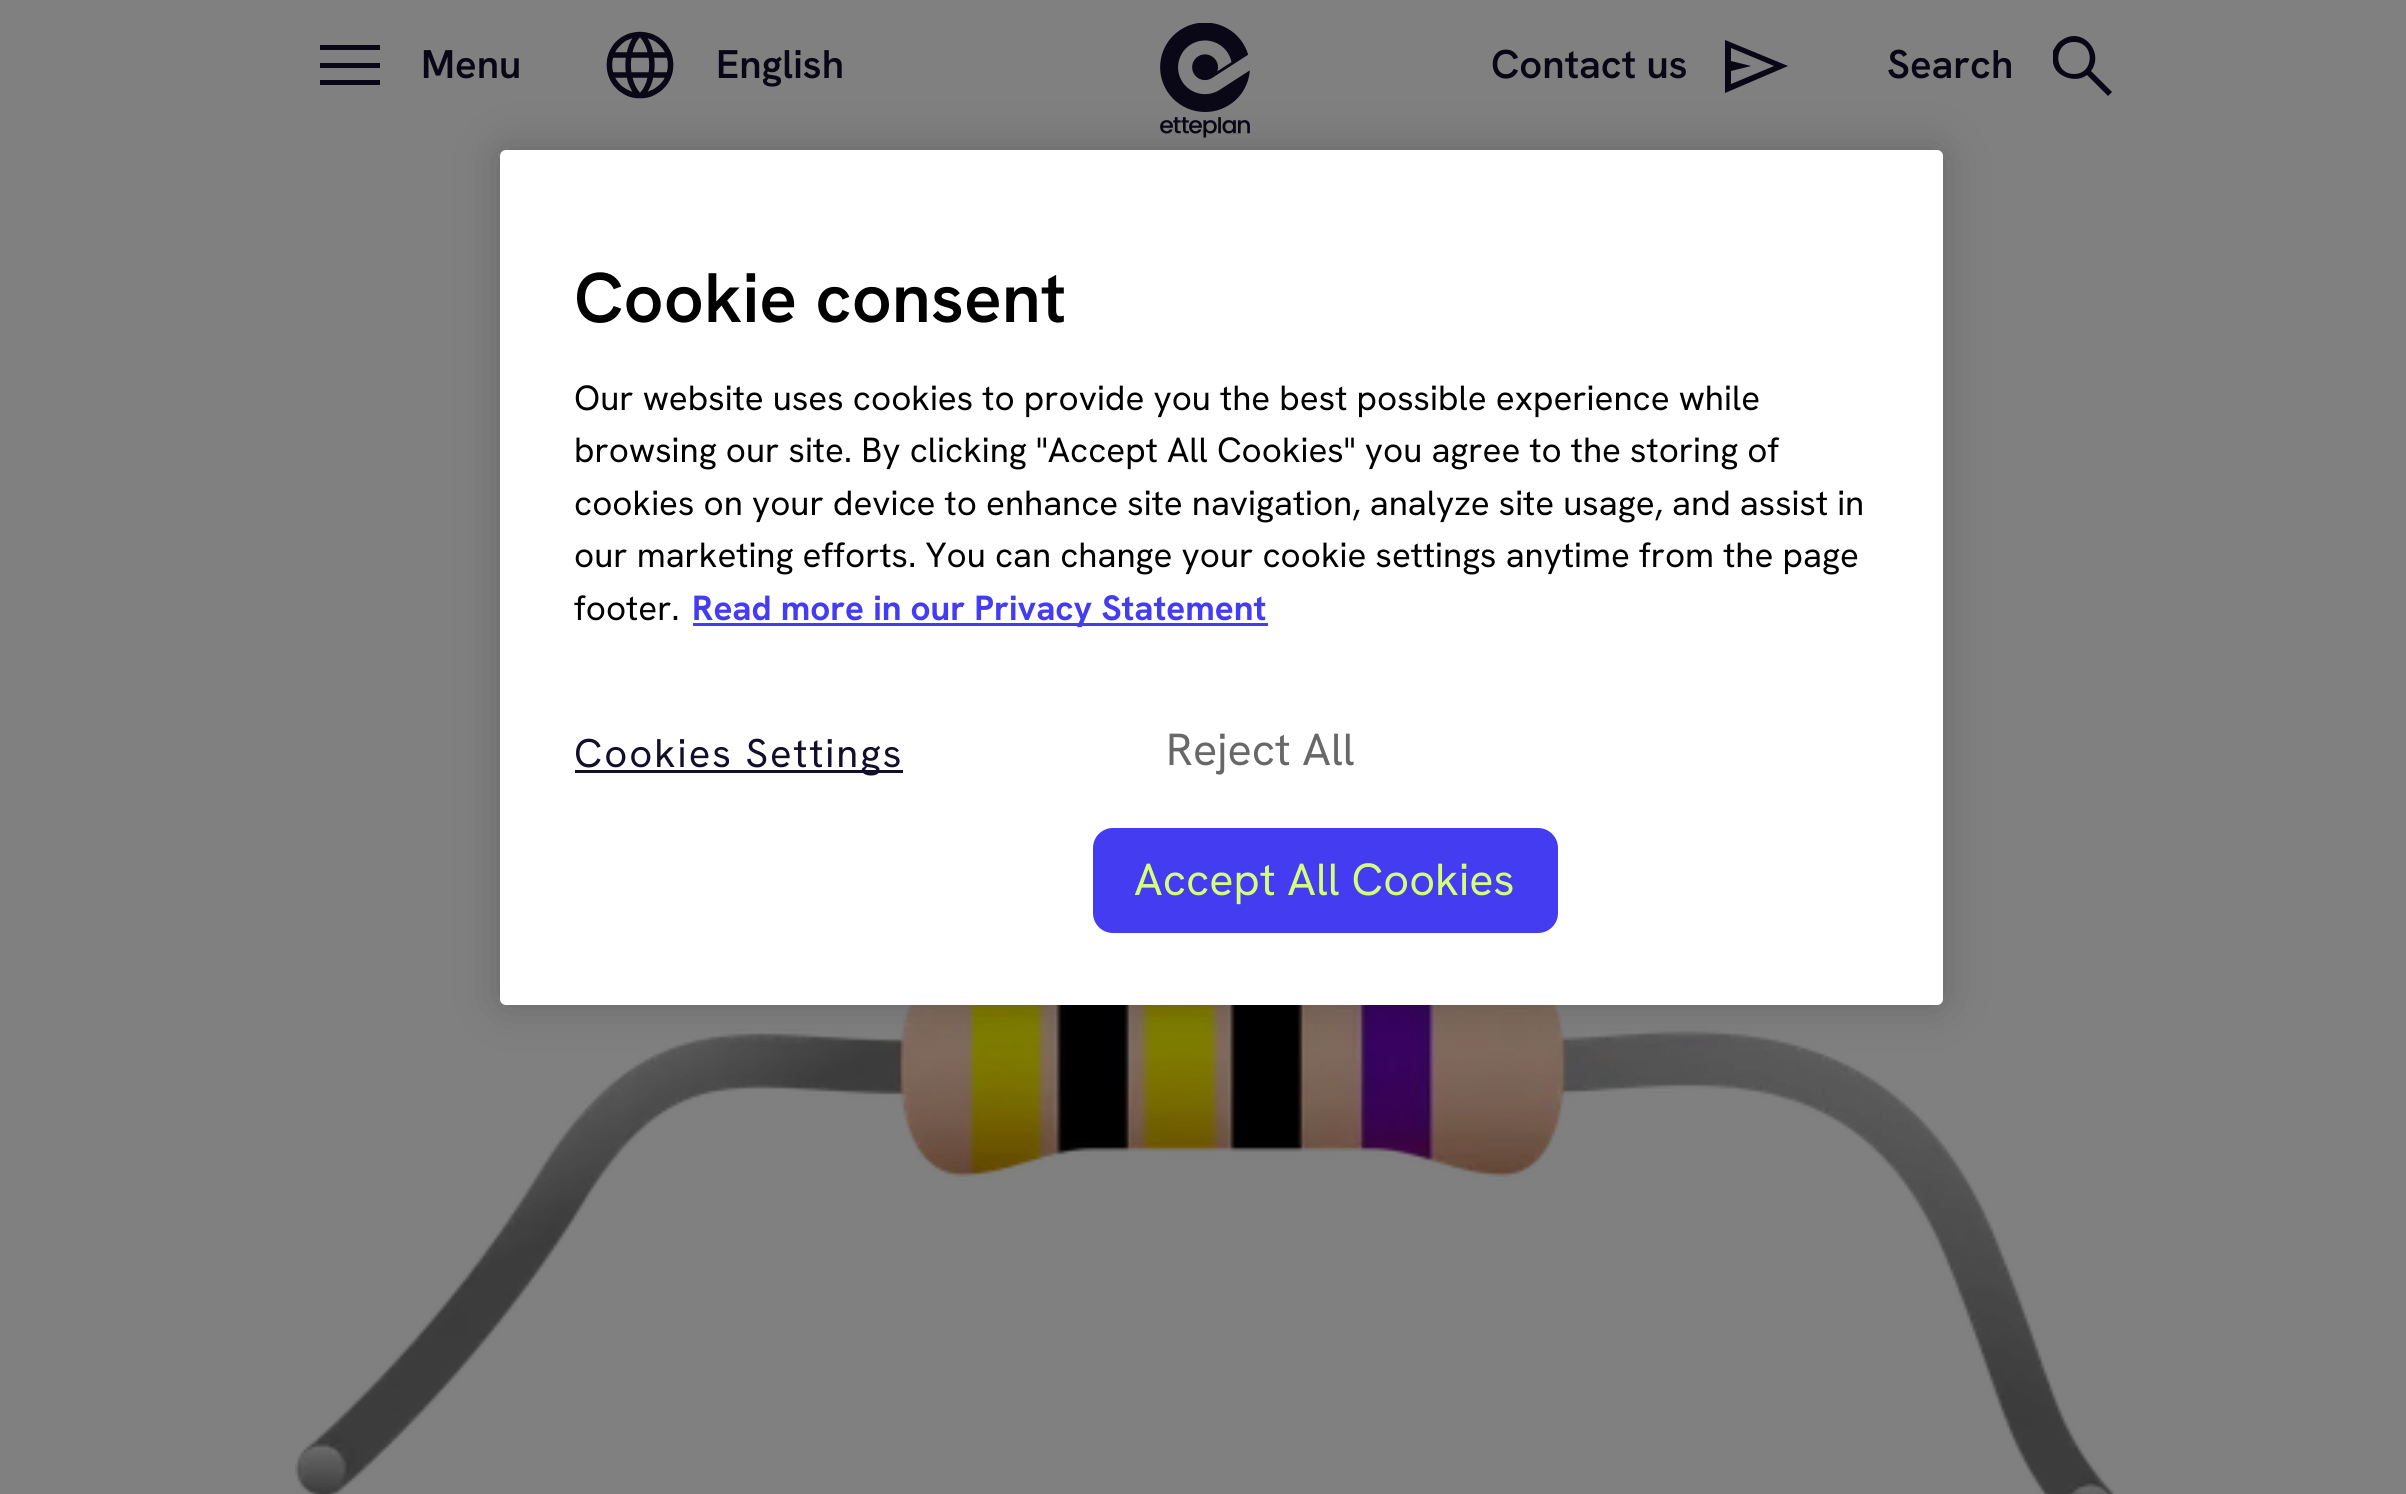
#include <cairo.h>
#include <math.h>
#include <stddef.h>


static void spaced_text(cairo_t *cr, double x, double y, const char *s, double letter, double word) {
    cairo_move_to(cr, x, y);
    while (*s) {
        char ch[5] = {0};
        int n = 0;
        do ch[n++] = *s++; while ((*s & 0xC0) == 0x80);
        cairo_show_text(cr, ch);
        cairo_rel_move_to(cr, letter + word * (*ch == ' '), 0);
    }
}

static void round_rect(cairo_t *cr, double x, double y, double w, double h, double r) {
    cairo_new_sub_path(cr);
    cairo_arc(cr, x + w - r, y + h - r, r, 0, M_PI / 2);
    cairo_arc(cr, x + r, y + h - r, r, M_PI / 2, M_PI);
    cairo_arc(cr, x + r, y + r, r, M_PI, 1.5 * M_PI);
    cairo_arc(cr, x + w - r, y + r, r, 1.5 * M_PI, 2 * M_PI);
    cairo_close_path(cr);
}

static void shadow(cairo_t *cr, double x, double y, double w, double h, double r, double blur, double alpha) {
    cairo_push_group_with_content(cr, CAIRO_CONTENT_ALPHA);
    cairo_set_operator(cr, CAIRO_OPERATOR_SOURCE);
    for (int i = 15; i >= -15 && fmin(w, h) + blur * i / 3 > 0; i -= 2) {
        double e = blur * i / 6;
        cairo_set_source_rgba(cr, 0, 0, 0, alpha * erfc((i - 1) / 8.5) / 2);
        round_rect(cr, x - e, y - e, w + 2 * e, h + 2 * e, fmax(0, fmin(r + e + blur * .6, fmin(w, h) / 2 + e)));
        cairo_fill(cr);
    }
    cairo_pattern_t *soft = cairo_pop_group(cr);
    cairo_mask(cr, soft);
    cairo_pattern_destroy(soft);
}

static void picture(cairo_t *cr, const char *path, double x, double y, double w, double h) {
    cairo_surface_t *image = cairo_image_surface_create_from_png(path);
    cairo_save(cr);
    cairo_set_source_surface(cr, image, x, y);
    cairo_rectangle(cr, x, y, w, h);
    cairo_fill(cr);
    cairo_restore(cr);
    cairo_surface_destroy(image);
}

int main(void) {
    cairo_surface_t *surface = cairo_image_surface_create(CAIRO_FORMAT_RGB24, 2406, 1494);
    cairo_t *cr = cairo_create(surface);
    cairo_font_options_t *options = cairo_font_options_create();
    cairo_font_options_set_hint_metrics(options, CAIRO_HINT_METRICS_OFF);
    cairo_font_options_set_hint_style(options, CAIRO_HINT_STYLE_NONE);
    cairo_set_font_options(cr, options);
    cairo_set_miter_limit(cr, 4);
    cairo_set_source_rgb(cr, 0.502, 0.502, 0.502);
    cairo_paint(cr);
    cairo_set_source_rgb(cr, 0.039, 0.027, 0.086);
    cairo_rectangle(cr, 320, 45, 60, 5);
    cairo_fill(cr);
    cairo_rectangle(cr, 320, 63, 60, 5);
    cairo_fill(cr);
    cairo_select_font_face(cr, "Hanken Grotesk SemiBold", CAIRO_FONT_SLANT_NORMAL, CAIRO_FONT_WEIGHT_NORMAL);
    cairo_set_font_size(cr, 40);
    cairo_move_to(cr, 421, 78);
    cairo_show_text(cr, "Menu");
    cairo_rectangle(cr, 320, 80, 60, 5);
    cairo_fill(cr);
    picture(cr, "img1.png", 606, 31, 68, 68);
    cairo_move_to(cr, 716, 78);
    cairo_show_text(cr, "English");
    picture(cr, "img2.png", 1160, 23, 90, 115);
    cairo_move_to(cr, 1491, 78);
    cairo_show_text(cr, "Contact us");
    cairo_new_path(cr);
    cairo_move_to(cr, 1725, 93);
    cairo_line_to(cr, 1725, 40);
    cairo_line_to(cr, 1788, 66);
    cairo_close_path(cr);
    cairo_move_to(cr, 1731, 84);
    cairo_line_to(cr, 1774, 66);
    cairo_line_to(cr, 1731, 48);
    cairo_line_to(cr, 1731, 61);
    cairo_line_to(cr, 1751, 66);
    cairo_line_to(cr, 1731, 71);
    cairo_close_path(cr);
    cairo_fill(cr);
    cairo_move_to(cr, 1887, 78);
    cairo_show_text(cr, "Search");
    cairo_save(cr);
    cairo_rectangle(cr, 2053, 35, 60, 63);
    cairo_clip(cr);
    cairo_new_path(cr);
    cairo_move_to(cr, 2108, 96);
    cairo_line_to(cr, 2087, 75);
    cairo_curve_to(cr, 2078, 82, 2063, 79, 2056, 70);
    cairo_curve_to(cr, 2052, 64, 2052, 57, 2053, 51);
    cairo_curve_to(cr, 2055, 47, 2058, 42, 2062, 40);
    cairo_curve_to(cr, 2082, 26, 2105, 52, 2091, 71);
    cairo_line_to(cr, 2112, 92);
    cairo_close_path(cr);
    cairo_move_to(cr, 2074, 74);
    cairo_curve_to(cr, 2095, 74, 2095, 42, 2074, 42);
    cairo_curve_to(cr, 2053, 42, 2053, 74, 2074, 74);
    cairo_close_path(cr);
    cairo_fill(cr);
    cairo_restore(cr);
    picture(cr, "img3.png", 295, 1005, 1820, 489);
    cairo_set_source_rgb(cr, 0, 0, 0);
    shadow(cr, 500, 150, 1443, 855, 6, 22.5, 0.2);
    cairo_set_source_rgb(cr, 1, 1, 1);
    round_rect(cr, 500, 150, 1443, 855, 6);
    cairo_fill(cr);
    cairo_set_font_size(cr, 70);
    cairo_set_source_rgb(cr, 0, 0, 0);
    cairo_move_to(cr, 574, 322);
    cairo_show_text(cr, "Cookie consent");
    cairo_select_font_face(cr, "Hanken Grotesk", CAIRO_FONT_SLANT_NORMAL, CAIRO_FONT_WEIGHT_NORMAL);
    cairo_set_font_size(cr, 35);
    cairo_move_to(cr, 574, 410);
    cairo_show_text(cr, "Our website uses cookies to provide you the best possible experience while");
    cairo_move_to(cr, 574, 462);
    cairo_show_text(cr, "browsing our site. By clicking \"Accept All Cookies\" you agree to the storing of");
    cairo_move_to(cr, 574, 515);
    cairo_show_text(cr, "cookies on your device to enhance site navigation, analyze site usage, and assist in");
    cairo_move_to(cr, 574, 567);
    cairo_show_text(cr, "our marketing efforts. You can change your cookie settings anytime from the page");
    cairo_move_to(cr, 574, 620);
    cairo_show_text(cr, "footer.");
    cairo_set_source_rgb(cr, 0.267, 0.235, 0.941);
    cairo_rectangle(cr, 693, 623, 575, 3);
    cairo_fill(cr);
    cairo_select_font_face(cr, "Hanken Grotesk", CAIRO_FONT_SLANT_NORMAL, CAIRO_FONT_WEIGHT_BOLD);
    cairo_move_to(cr, 692, 620);
    cairo_show_text(cr, "Read more in our Privacy Statement");
    cairo_set_source_rgb(cr, 0.075, 0.055, 0.169);
    cairo_rectangle(cr, 575, 770, 328, 3);
    cairo_fill(cr);
    cairo_select_font_face(cr, "Hanken Grotesk", CAIRO_FONT_SLANT_NORMAL, CAIRO_FONT_WEIGHT_NORMAL);
    cairo_set_font_size(cr, 40);
    spaced_text(cr, 574, 767, "Cookies Settings", 2, 0);
    cairo_set_font_size(cr, 45);
    cairo_set_source_rgb(cr, 0.408, 0.408, 0.408);
    cairo_move_to(cr, 1166, 765);
    cairo_show_text(cr, "Reject All");
    cairo_set_source_rgb(cr, 0.267, 0.235, 0.941);
    round_rect(cr, 1094.5, 829.5, 462, 102, 18.5);
    cairo_fill_preserve(cr);
    cairo_set_line_width(cr, 3);
    cairo_stroke(cr);
    cairo_set_source_rgb(cr, 0.839, 1, 0.475);
    cairo_move_to(cr, 1134, 895);
    cairo_show_text(cr, "Accept All Cookies");
    cairo_surface_write_to_png(surface, "page.png");
    cairo_font_options_destroy(options);
    cairo_destroy(cr);
    cairo_surface_destroy(surface);
    return 0;
}
